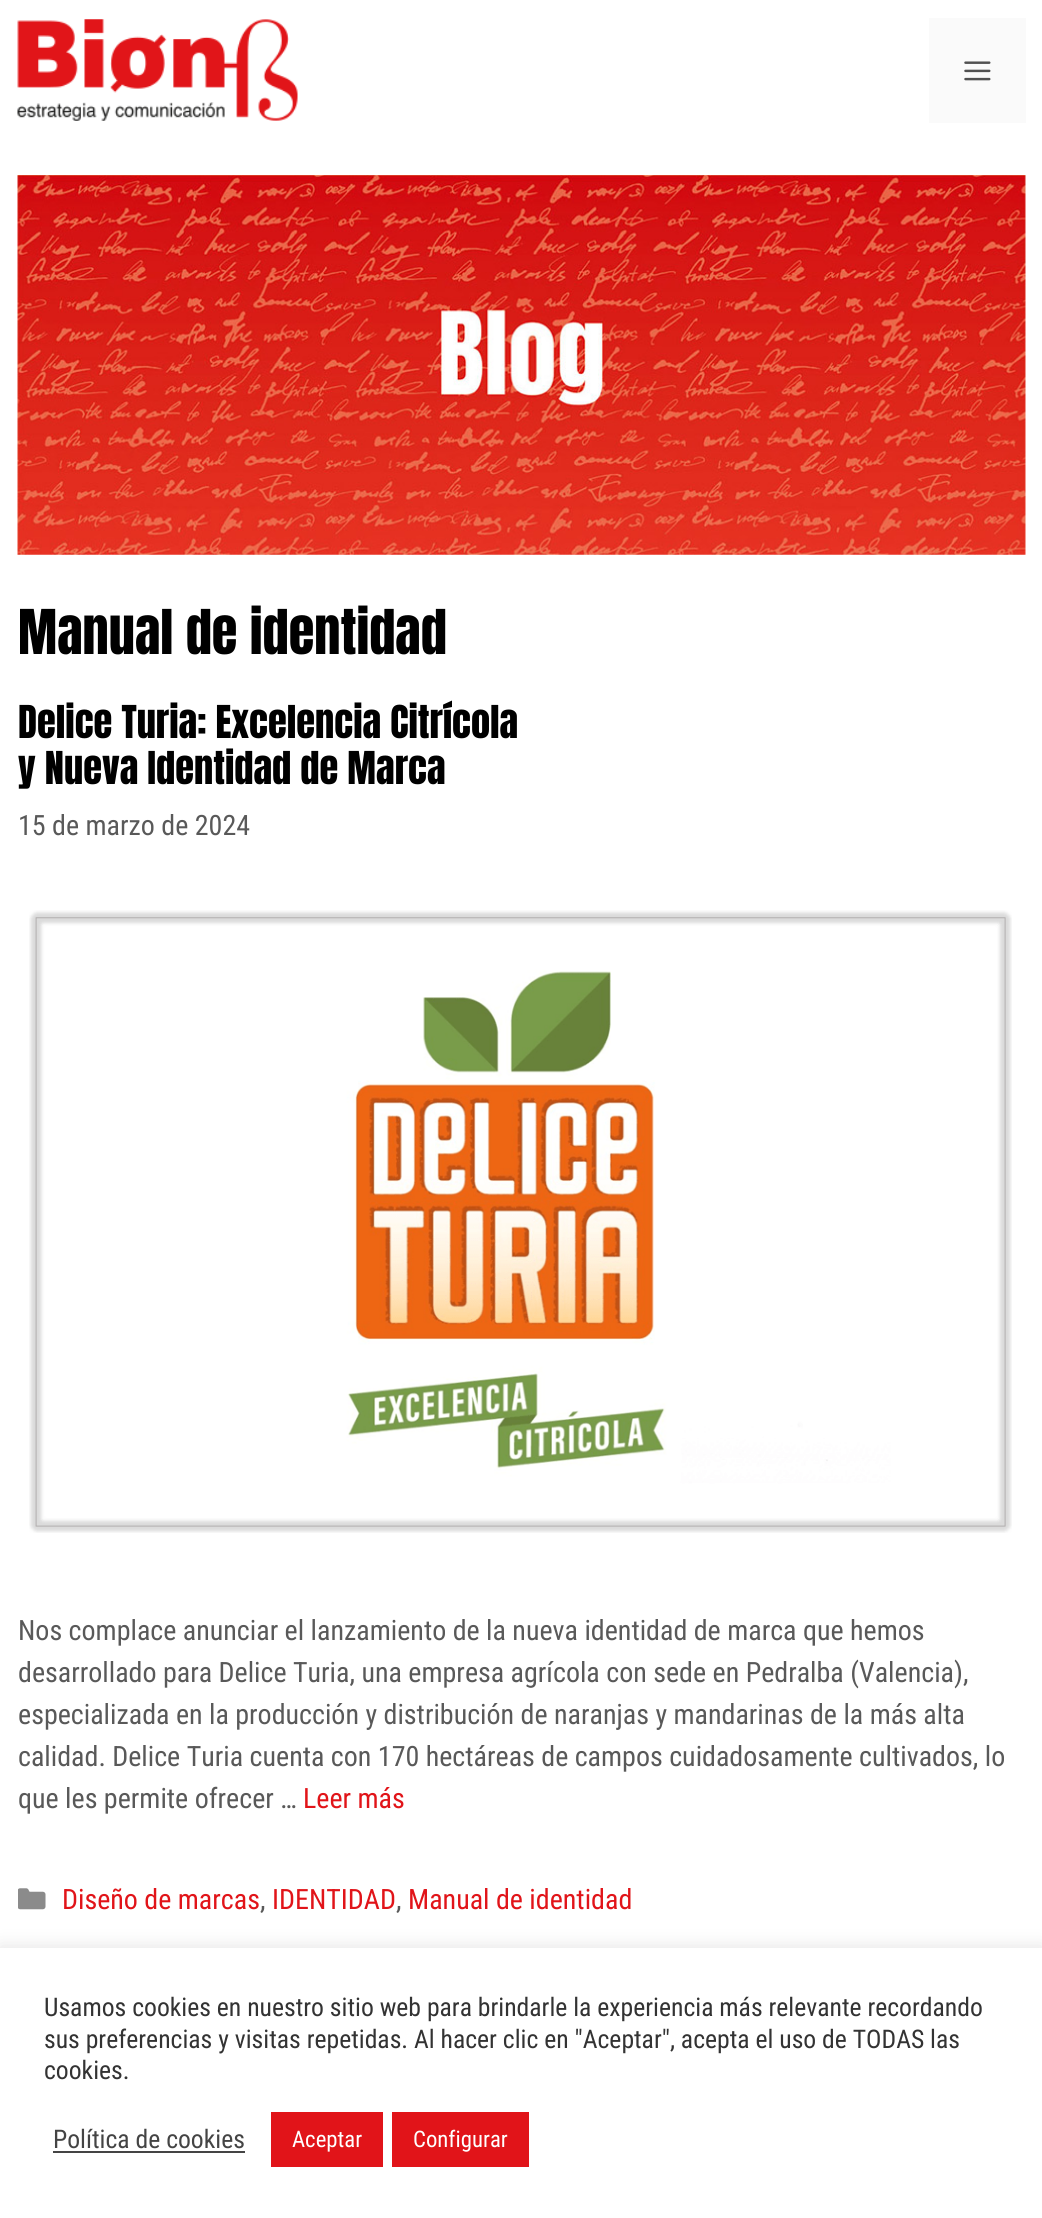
#include <cairo.h>
#include <math.h>
#include <stddef.h>


static void round_rect(cairo_t *cr, double x, double y, double w, double h, double r) {
    cairo_new_sub_path(cr);
    cairo_arc(cr, x + w - r, y + h - r, r, 0, M_PI / 2);
    cairo_arc(cr, x + r, y + h - r, r, M_PI / 2, M_PI);
    cairo_arc(cr, x + r, y + r, r, M_PI, 1.5 * M_PI);
    cairo_arc(cr, x + w - r, y + r, r, 1.5 * M_PI, 2 * M_PI);
    cairo_close_path(cr);
}

static void shadow(cairo_t *cr, double x, double y, double w, double h, double r, double blur, double alpha) {
    cairo_push_group_with_content(cr, CAIRO_CONTENT_ALPHA);
    cairo_set_operator(cr, CAIRO_OPERATOR_SOURCE);
    for (int i = 15; i >= -15 && fmin(w, h) + blur * i / 3 > 0; i -= 2) {
        double e = blur * i / 6;
        cairo_set_source_rgba(cr, 0, 0, 0, alpha * erfc((i - 1) / 8.5) / 2);
        round_rect(cr, x - e, y - e, w + 2 * e, h + 2 * e, fmax(0, fmin(r + e + blur * .6, fmin(w, h) / 2 + e)));
        cairo_fill(cr);
    }
    cairo_pattern_t *soft = cairo_pop_group(cr);
    cairo_mask(cr, soft);
    cairo_pattern_destroy(soft);
}

static void picture(cairo_t *cr, const char *path, double x, double y, double w, double h) {
    cairo_surface_t *image = cairo_image_surface_create_from_png(path);
    cairo_save(cr);
    cairo_set_source_surface(cr, image, x, y);
    cairo_rectangle(cr, x, y, w, h);
    cairo_fill(cr);
    cairo_restore(cr);
    cairo_surface_destroy(image);
}

int main(void) {
    cairo_surface_t *surface = cairo_image_surface_create(CAIRO_FORMAT_RGB24, 1042, 2218);
    cairo_t *cr = cairo_create(surface);
    cairo_font_options_t *options = cairo_font_options_create();
    cairo_font_options_set_hint_metrics(options, CAIRO_HINT_METRICS_OFF);
    cairo_font_options_set_hint_style(options, CAIRO_HINT_STYLE_NONE);
    cairo_set_font_options(cr, options);
    cairo_set_miter_limit(cr, 4);
    cairo_set_source_rgb(cr, 1, 1, 1);
    cairo_paint(cr);
    picture(cr, "img1.png", 17, 19, 281, 102);
    cairo_set_source_rgb(cr, 0.98, 0.98, 0.98);
    cairo_rectangle(cr, 929, 18, 97, 105);
    cairo_fill(cr);
    picture(cr, "img2.png", 964, 61, 27, 20);
    picture(cr, "img3.png", 17, 175, 1009, 380);
    cairo_select_font_face(cr, "Anton", CAIRO_FONT_SLANT_NORMAL, CAIRO_FONT_WEIGHT_NORMAL);
    cairo_set_font_size(cr, 52.5);
    cairo_set_source_rgb(cr, 0, 0, 0);
    cairo_move_to(cr, 18, 654);
    cairo_show_text(cr, "Manual de identidad");
    cairo_set_font_size(cr, 38.5);
    cairo_move_to(cr, 18, 738);
    cairo_show_text(cr, "Delice Turia: Excelencia Citrícola");
    cairo_move_to(cr, 18, 784);
    cairo_show_text(cr, "y Nueva Identidad de Marca");
    cairo_select_font_face(cr, "Roboto Condensed", CAIRO_FONT_SLANT_NORMAL, CAIRO_FONT_WEIGHT_NORMAL);
    cairo_set_font_size(cr, 28);
    cairo_set_source_rgb(cr, 0.349, 0.349, 0.349);
    cairo_move_to(cr, 18, 835);
    cairo_show_text(cr, "15 de marzo de 2024");
    picture(cr, "img4.png", 29, 910, 983, 623);
    cairo_move_to(cr, 18, 1640);
    cairo_show_text(cr, "Nos complace anunciar el lanzamiento de la nueva identidad de marca que hemos");
    cairo_move_to(cr, 18, 1682);
    cairo_show_text(cr, "desarrollado para Delice Turia, una empresa agrícola con sede en Pedralba (Valencia),");
    cairo_move_to(cr, 18, 1724);
    cairo_show_text(cr, "especializada en la producción y distribución de naranjas y mandarinas de la más alta");
    cairo_move_to(cr, 18, 1766);
    cairo_show_text(cr, "calidad. Delice Turia cuenta con 170 hectáreas de campos cuidadosamente cultivados, lo");
    cairo_move_to(cr, 18, 1808);
    cairo_show_text(cr, "que les permite ofrecer …");
    cairo_set_source_rgb(cr, 0.882, 0.082, 0.098);
    cairo_move_to(cr, 303, 1808);
    cairo_show_text(cr, "Leer más");
    picture(cr, "img5.png", 18, 1888, 28, 22);
    cairo_move_to(cr, 62, 1909);
    cairo_show_text(cr, "Diseño de marcas");
    cairo_set_source_rgb(cr, 0.349, 0.349, 0.349);
    cairo_move_to(cr, 260, 1909);
    cairo_show_text(cr, ",");
    cairo_set_source_rgb(cr, 0.882, 0.082, 0.098);
    cairo_move_to(cr, 272, 1909);
    cairo_show_text(cr, "IDENTIDAD");
    cairo_set_source_rgb(cr, 0.349, 0.349, 0.349);
    cairo_move_to(cr, 396, 1909);
    cairo_show_text(cr, ",");
    cairo_set_source_rgb(cr, 0.882, 0.082, 0.098);
    cairo_move_to(cr, 408, 1909);
    cairo_show_text(cr, "Manual de identidad");
    cairo_set_source_rgb(cr, 0.675, 0.671, 0.671);
    shadow(cr, 0, 1946, 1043, 271, 0, 9, 0.3);
    cairo_set_source_rgb(cr, 1, 1, 1);
    cairo_rectangle(cr, 0, 1948, 1042, 270);
    cairo_fill(cr);
    cairo_set_font_size(cr, 25.65);
    cairo_set_source_rgb(cr, 0.2, 0.2, 0.2);
    cairo_move_to(cr, 44, 2016);
    cairo_show_text(cr, "Usamos cookies en nuestro sitio web para brindarle la experiencia más relevante recordando");
    cairo_move_to(cr, 44, 2048);
    cairo_show_text(cr, "sus preferencias y visitas repetidas. Al hacer clic en \"Aceptar\", acepta el uso de TODAS las");
    cairo_move_to(cr, 44, 2079);
    cairo_show_text(cr, "cookies.");
    cairo_set_source_rgb(cr, 0.267, 0.267, 0.267);
    cairo_move_to(cr, 53, 2148);
    cairo_show_text(cr, "Política de cookies");
    cairo_rectangle(cr, 53, 2151, 192, 2);
    cairo_fill(cr);
    cairo_set_source_rgb(cr, 0.882, 0.082, 0.098);
    cairo_rectangle(cr, 271, 2112, 112, 55);
    cairo_fill(cr);
    cairo_set_font_size(cr, 22.75);
    cairo_set_source_rgb(cr, 1, 1, 1);
    cairo_move_to(cr, 292, 2147);
    cairo_show_text(cr, "Aceptar");
    cairo_set_source_rgb(cr, 0.882, 0.082, 0.098);
    cairo_rectangle(cr, 392, 2112, 137, 55);
    cairo_fill(cr);
    cairo_set_source_rgb(cr, 1, 1, 1);
    cairo_move_to(cr, 413, 2147);
    cairo_show_text(cr, "Configurar");
    cairo_surface_write_to_png(surface, "page.png");
    cairo_font_options_destroy(options);
    cairo_destroy(cr);
    cairo_surface_destroy(surface);
    return 0;
}
